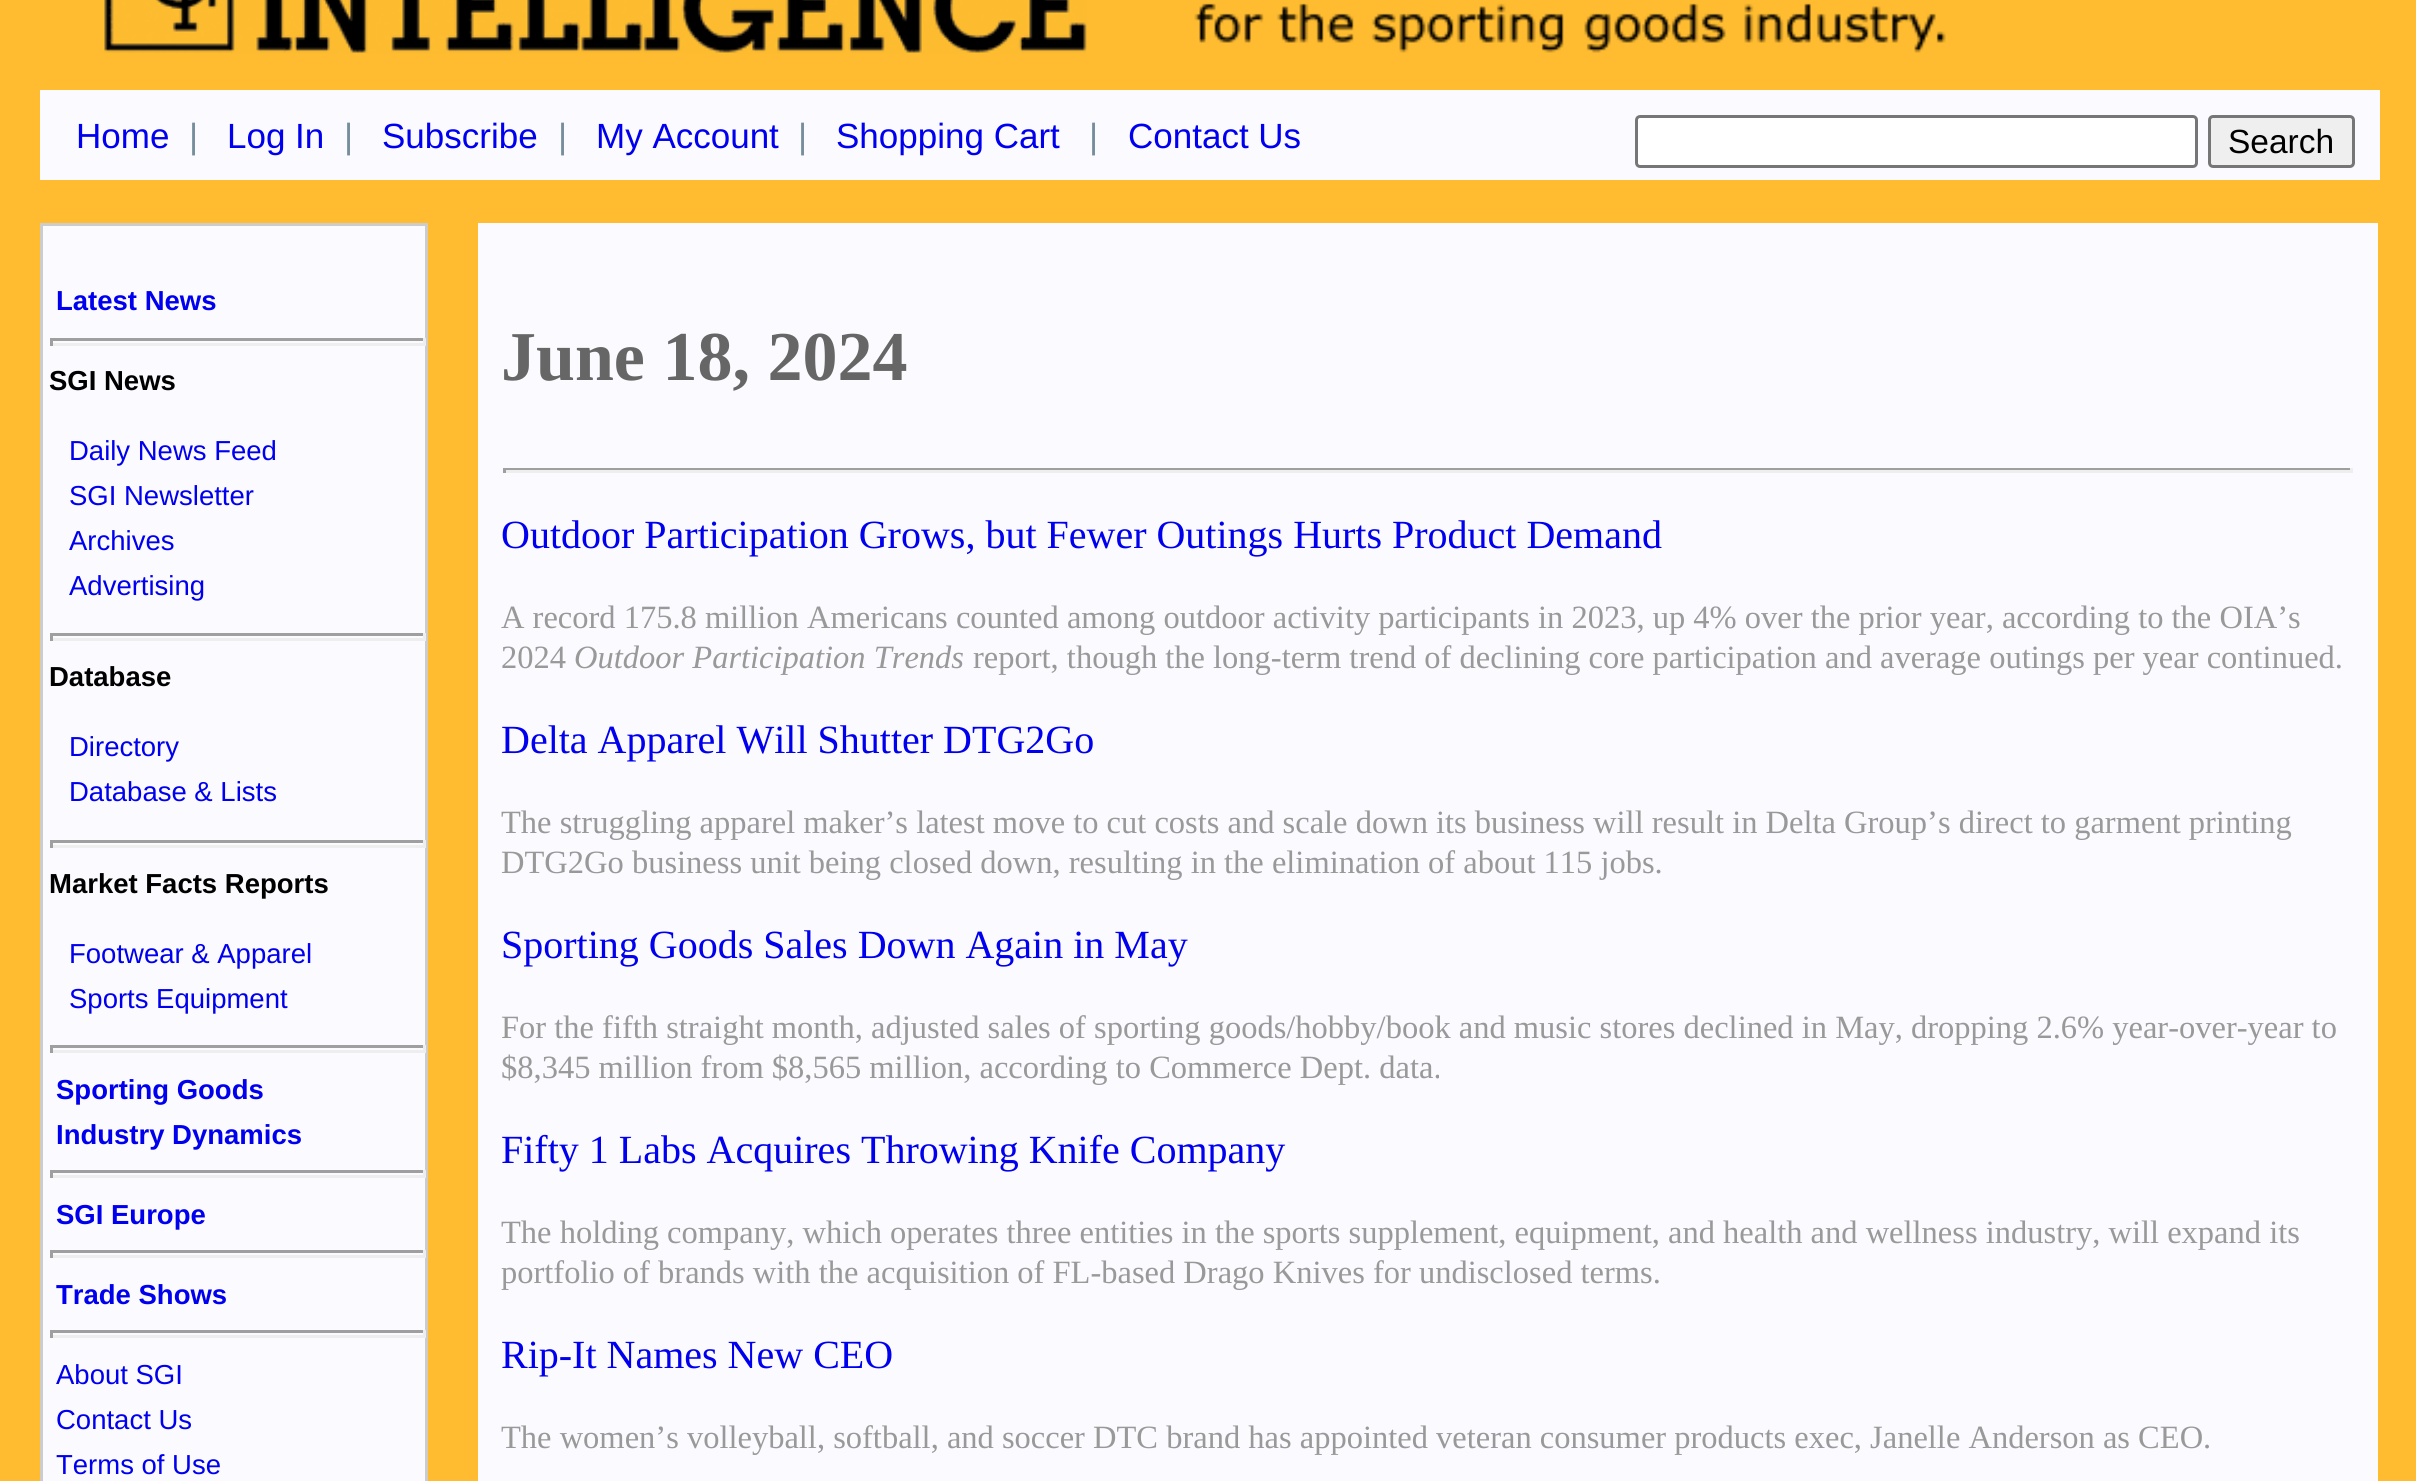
#include <cairo.h>
#include <math.h>
#include <stddef.h>


static void round_rect(cairo_t *cr, double x, double y, double w, double h, double r) {
    cairo_new_sub_path(cr);
    cairo_arc(cr, x + w - r, y + h - r, r, 0, M_PI / 2);
    cairo_arc(cr, x + r, y + h - r, r, M_PI / 2, M_PI);
    cairo_arc(cr, x + r, y + r, r, M_PI, 1.5 * M_PI);
    cairo_arc(cr, x + w - r, y + r, r, 1.5 * M_PI, 2 * M_PI);
    cairo_close_path(cr);
}

static void picture(cairo_t *cr, const char *path, double x, double y, double w, double h) {
    cairo_surface_t *image = cairo_image_surface_create_from_png(path);
    cairo_save(cr);
    cairo_set_source_surface(cr, image, x, y);
    cairo_rectangle(cr, x, y, w, h);
    cairo_fill(cr);
    cairo_restore(cr);
    cairo_surface_destroy(image);
}

int main(void) {
    cairo_surface_t *surface = cairo_image_surface_create(CAIRO_FORMAT_RGB24, 2416, 1481);
    cairo_t *cr = cairo_create(surface);
    cairo_font_options_t *options = cairo_font_options_create();
    cairo_font_options_set_hint_metrics(options, CAIRO_HINT_METRICS_OFF);
    cairo_font_options_set_hint_style(options, CAIRO_HINT_STYLE_NONE);
    cairo_set_font_options(cr, options);
    cairo_set_miter_limit(cr, 4);
    cairo_set_source_rgb(cr, 1, 0.737, 0.188);
    cairo_paint(cr);
    picture(cr, "img1.png", 103, 0, 984, 54);
    picture(cr, "img2.png", 1194, 3, 752, 50);
    cairo_set_source_rgb(cr, 0.98, 0.98, 1);
    cairo_rectangle(cr, 40, 90, 2340, 90);
    cairo_fill(cr);
    cairo_select_font_face(cr, "Liberation Sans", CAIRO_FONT_SLANT_NORMAL, CAIRO_FONT_WEIGHT_NORMAL);
    cairo_set_font_size(cr, 35);
    cairo_set_source_rgb(cr, 0, 0, 0.933);
    cairo_move_to(cr, 76, 148);
    cairo_show_text(cr, "Home");
    cairo_set_source_rgb(cr, 0.463, 0.553, 0.608);
    cairo_move_to(cr, 189, 148);
    cairo_show_text(cr, "|");
    cairo_set_source_rgb(cr, 0, 0, 0.933);
    cairo_move_to(cr, 227, 148);
    cairo_show_text(cr, "Log In");
    cairo_set_source_rgb(cr, 0.463, 0.553, 0.608);
    cairo_move_to(cr, 344, 148);
    cairo_show_text(cr, "|");
    cairo_set_source_rgb(cr, 0, 0, 0.933);
    cairo_move_to(cr, 382, 148);
    cairo_show_text(cr, "Subscribe");
    cairo_set_source_rgb(cr, 0.463, 0.553, 0.608);
    cairo_move_to(cr, 558, 148);
    cairo_show_text(cr, "|");
    cairo_set_source_rgb(cr, 0, 0, 0.933);
    cairo_move_to(cr, 596, 148);
    cairo_show_text(cr, "My Account");
    cairo_set_source_rgb(cr, 0.463, 0.553, 0.608);
    cairo_move_to(cr, 798, 148);
    cairo_show_text(cr, "|");
    cairo_set_source_rgb(cr, 0, 0, 0.933);
    cairo_move_to(cr, 836, 148);
    cairo_show_text(cr, "Shopping Cart");
    cairo_set_source_rgb(cr, 0.463, 0.553, 0.608);
    cairo_move_to(cr, 1089, 148);
    cairo_show_text(cr, "|");
    cairo_set_source_rgb(cr, 0, 0, 0.933);
    cairo_move_to(cr, 1128, 148);
    cairo_show_text(cr, "Contact Us");
    cairo_set_source_rgb(cr, 1, 1, 1);
    round_rect(cr, 1636.5, 116.5, 560, 50, 3.5);
    cairo_fill_preserve(cr);
    cairo_set_source_rgb(cr, 0.463, 0.463, 0.463);
    cairo_set_line_width(cr, 3);
    cairo_stroke(cr);
    cairo_set_source_rgb(cr, 0.937, 0.937, 0.937);
    round_rect(cr, 2209.5, 116.5, 144, 50, 3.5);
    cairo_fill_preserve(cr);
    cairo_set_source_rgb(cr, 0.463, 0.463, 0.463);
    cairo_stroke(cr);
    cairo_set_font_size(cr, 33.5);
    cairo_set_source_rgb(cr, 0, 0, 0);
    cairo_move_to(cr, 2228, 153);
    cairo_show_text(cr, "Search");
    cairo_set_source_rgb(cr, 0.98, 0.98, 1);
    cairo_rectangle(cr, 41.5, 224.5, 385, 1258);
    cairo_fill_preserve(cr);
    cairo_set_source_rgb(cr, 0.8, 0.8, 0.8);
    cairo_stroke(cr);
    cairo_select_font_face(cr, "Liberation Sans", CAIRO_FONT_SLANT_NORMAL, CAIRO_FONT_WEIGHT_BOLD);
    cairo_set_font_size(cr, 27.5);
    cairo_set_source_rgb(cr, 0, 0, 0.933);
    cairo_move_to(cr, 56, 310);
    cairo_show_text(cr, "Latest News");
    cairo_set_source_rgb(cr, 0.624, 0.624, 0.624);
    cairo_rectangle(cr, 50, 338, 375, 3);
    cairo_fill(cr);
    cairo_set_source_rgb(cr, 0.933, 0.933, 0.933);
    cairo_rectangle(cr, 423, 338, 3, 8);
    cairo_fill(cr);
    cairo_rectangle(cr, 50, 343, 375, 3);
    cairo_fill(cr);
    cairo_set_source_rgb(cr, 0.624, 0.624, 0.624);
    cairo_rectangle(cr, 50, 338, 3, 8);
    cairo_fill(cr);
    cairo_set_source_rgb(cr, 0, 0, 0);
    cairo_move_to(cr, 49, 390);
    cairo_show_text(cr, "SGI News");
    cairo_select_font_face(cr, "Liberation Sans", CAIRO_FONT_SLANT_NORMAL, CAIRO_FONT_WEIGHT_NORMAL);
    cairo_set_source_rgb(cr, 0, 0, 0.933);
    cairo_move_to(cr, 69, 460);
    cairo_show_text(cr, "Daily News Feed");
    cairo_move_to(cr, 69, 505);
    cairo_show_text(cr, "SGI Newsletter");
    cairo_move_to(cr, 69, 550);
    cairo_show_text(cr, "Archives");
    cairo_move_to(cr, 69, 595);
    cairo_show_text(cr, "Advertising");
    cairo_set_source_rgb(cr, 0.624, 0.624, 0.624);
    cairo_rectangle(cr, 50, 633, 375, 3);
    cairo_fill(cr);
    cairo_set_source_rgb(cr, 0.933, 0.933, 0.933);
    cairo_rectangle(cr, 423, 633, 3, 8);
    cairo_fill(cr);
    cairo_rectangle(cr, 50, 638, 375, 3);
    cairo_fill(cr);
    cairo_set_source_rgb(cr, 0.624, 0.624, 0.624);
    cairo_rectangle(cr, 50, 633, 3, 8);
    cairo_fill(cr);
    cairo_select_font_face(cr, "Liberation Sans", CAIRO_FONT_SLANT_NORMAL, CAIRO_FONT_WEIGHT_BOLD);
    cairo_set_source_rgb(cr, 0, 0, 0);
    cairo_move_to(cr, 49, 686);
    cairo_show_text(cr, "Database");
    cairo_select_font_face(cr, "Liberation Sans", CAIRO_FONT_SLANT_NORMAL, CAIRO_FONT_WEIGHT_NORMAL);
    cairo_set_source_rgb(cr, 0, 0, 0.933);
    cairo_move_to(cr, 69, 756);
    cairo_show_text(cr, "Directory");
    cairo_move_to(cr, 69, 801);
    cairo_show_text(cr, "Database & Lists");
    cairo_set_source_rgb(cr, 0.624, 0.624, 0.624);
    cairo_rectangle(cr, 50, 840, 375, 3);
    cairo_fill(cr);
    cairo_set_source_rgb(cr, 0.933, 0.933, 0.933);
    cairo_rectangle(cr, 423, 840, 3, 8);
    cairo_fill(cr);
    cairo_rectangle(cr, 50, 845, 375, 3);
    cairo_fill(cr);
    cairo_set_source_rgb(cr, 0.624, 0.624, 0.624);
    cairo_rectangle(cr, 50, 840, 3, 8);
    cairo_fill(cr);
    cairo_select_font_face(cr, "Liberation Sans", CAIRO_FONT_SLANT_NORMAL, CAIRO_FONT_WEIGHT_BOLD);
    cairo_set_source_rgb(cr, 0, 0, 0);
    cairo_move_to(cr, 49, 893);
    cairo_show_text(cr, "Market Facts Reports");
    cairo_select_font_face(cr, "Liberation Sans", CAIRO_FONT_SLANT_NORMAL, CAIRO_FONT_WEIGHT_NORMAL);
    cairo_set_source_rgb(cr, 0, 0, 0.933);
    cairo_move_to(cr, 69, 963);
    cairo_show_text(cr, "Footwear & Apparel");
    cairo_move_to(cr, 69, 1008);
    cairo_show_text(cr, "Sports Equipment");
    cairo_set_source_rgb(cr, 0.624, 0.624, 0.624);
    cairo_rectangle(cr, 50, 1045, 375, 3);
    cairo_fill(cr);
    cairo_set_source_rgb(cr, 0.933, 0.933, 0.933);
    cairo_rectangle(cr, 423, 1045, 3, 8);
    cairo_fill(cr);
    cairo_rectangle(cr, 50, 1050, 375, 3);
    cairo_fill(cr);
    cairo_set_source_rgb(cr, 0.624, 0.624, 0.624);
    cairo_rectangle(cr, 50, 1045, 3, 8);
    cairo_fill(cr);
    cairo_select_font_face(cr, "Liberation Sans", CAIRO_FONT_SLANT_NORMAL, CAIRO_FONT_WEIGHT_BOLD);
    cairo_set_source_rgb(cr, 0, 0, 0.933);
    cairo_move_to(cr, 56, 1099);
    cairo_show_text(cr, "Sporting Goods");
    cairo_move_to(cr, 56, 1144);
    cairo_show_text(cr, "Industry Dynamics");
    cairo_set_source_rgb(cr, 0.624, 0.624, 0.624);
    cairo_rectangle(cr, 50, 1170, 375, 3);
    cairo_fill(cr);
    cairo_set_source_rgb(cr, 0.933, 0.933, 0.933);
    cairo_rectangle(cr, 423, 1170, 3, 8);
    cairo_fill(cr);
    cairo_rectangle(cr, 50, 1175, 375, 3);
    cairo_fill(cr);
    cairo_set_source_rgb(cr, 0.624, 0.624, 0.624);
    cairo_rectangle(cr, 50, 1170, 3, 8);
    cairo_fill(cr);
    cairo_set_source_rgb(cr, 0, 0, 0.933);
    cairo_move_to(cr, 56, 1224);
    cairo_show_text(cr, "SGI Europe");
    cairo_set_source_rgb(cr, 0.624, 0.624, 0.624);
    cairo_rectangle(cr, 50, 1250, 375, 3);
    cairo_fill(cr);
    cairo_set_source_rgb(cr, 0.933, 0.933, 0.933);
    cairo_rectangle(cr, 423, 1250, 3, 8);
    cairo_fill(cr);
    cairo_rectangle(cr, 50, 1255, 375, 3);
    cairo_fill(cr);
    cairo_set_source_rgb(cr, 0.624, 0.624, 0.624);
    cairo_rectangle(cr, 50, 1250, 3, 8);
    cairo_fill(cr);
    cairo_set_source_rgb(cr, 0, 0, 0.933);
    cairo_move_to(cr, 56, 1304);
    cairo_show_text(cr, "Trade Shows");
    cairo_set_source_rgb(cr, 0.624, 0.624, 0.624);
    cairo_rectangle(cr, 50, 1330, 375, 3);
    cairo_fill(cr);
    cairo_set_source_rgb(cr, 0.933, 0.933, 0.933);
    cairo_rectangle(cr, 423, 1330, 3, 8);
    cairo_fill(cr);
    cairo_rectangle(cr, 50, 1335, 375, 3);
    cairo_fill(cr);
    cairo_set_source_rgb(cr, 0.624, 0.624, 0.624);
    cairo_rectangle(cr, 50, 1330, 3, 8);
    cairo_fill(cr);
    cairo_select_font_face(cr, "Liberation Sans", CAIRO_FONT_SLANT_NORMAL, CAIRO_FONT_WEIGHT_NORMAL);
    cairo_set_source_rgb(cr, 0, 0, 0.933);
    cairo_move_to(cr, 56, 1384);
    cairo_show_text(cr, "About SGI");
    cairo_move_to(cr, 56, 1429);
    cairo_show_text(cr, "Contact Us");
    cairo_move_to(cr, 56, 1474);
    cairo_show_text(cr, "Terms of Use");
    cairo_set_source_rgb(cr, 0.98, 0.98, 1);
    cairo_rectangle(cr, 478, 223, 1900, 1258);
    cairo_fill(cr);
    cairo_select_font_face(cr, "Liberation Serif", CAIRO_FONT_SLANT_NORMAL, CAIRO_FONT_WEIGHT_BOLD);
    cairo_set_font_size(cr, 70);
    cairo_set_source_rgb(cr, 0.4, 0.4, 0.4);
    cairo_move_to(cr, 501, 380);
    cairo_show_text(cr, "June 18, 2024");
    cairo_set_source_rgb(cr, 0.624, 0.624, 0.624);
    cairo_rectangle(cr, 503, 468, 1850, 2);
    cairo_fill(cr);
    cairo_set_source_rgb(cr, 0.933, 0.933, 0.933);
    cairo_rectangle(cr, 2350, 468, 3, 5);
    cairo_fill(cr);
    cairo_rectangle(cr, 503, 470, 1850, 3);
    cairo_fill(cr);
    cairo_set_source_rgb(cr, 0.624, 0.624, 0.624);
    cairo_rectangle(cr, 503, 468, 3, 5);
    cairo_fill(cr);
    cairo_select_font_face(cr, "Liberation Serif", CAIRO_FONT_SLANT_NORMAL, CAIRO_FONT_WEIGHT_NORMAL);
    cairo_set_font_size(cr, 40);
    cairo_set_source_rgb(cr, 0, 0, 0.933);
    cairo_move_to(cr, 501, 548);
    cairo_show_text(cr, "Outdoor Participation Grows, but Fewer Outings Hurts Product Demand");
    cairo_set_font_size(cr, 32.5);
    cairo_set_source_rgb(cr, 0.6, 0.6, 0.6);
    cairo_move_to(cr, 501, 628);
    cairo_show_text(cr, "A record 175.8 million Americans counted among outdoor activity participants in 2023, up 4% over the prior year, according to the OIA’s");
    cairo_move_to(cr, 501, 668);
    cairo_show_text(cr, "2024");
    cairo_select_font_face(cr, "Liberation Serif", CAIRO_FONT_SLANT_ITALIC, CAIRO_FONT_WEIGHT_NORMAL);
    cairo_move_to(cr, 574, 668);
    cairo_show_text(cr, "Outdoor Participation Trends");
    cairo_select_font_face(cr, "Liberation Serif", CAIRO_FONT_SLANT_NORMAL, CAIRO_FONT_WEIGHT_NORMAL);
    cairo_move_to(cr, 973, 668);
    cairo_show_text(cr, "report, though the long-term trend of declining core participation and average outings per year continued.");
    cairo_set_font_size(cr, 40);
    cairo_set_source_rgb(cr, 0, 0, 0.933);
    cairo_move_to(cr, 501, 753);
    cairo_show_text(cr, "Delta Apparel Will Shutter DTG2Go");
    cairo_set_font_size(cr, 32.5);
    cairo_set_source_rgb(cr, 0.6, 0.6, 0.6);
    cairo_move_to(cr, 501, 833);
    cairo_show_text(cr, "The struggling apparel maker’s latest move to cut costs and scale down its business will result in Delta Group’s direct to garment printing");
    cairo_move_to(cr, 501, 873);
    cairo_show_text(cr, "DTG2Go business unit being closed down, resulting in the elimination of about 115 jobs.");
    cairo_set_font_size(cr, 40);
    cairo_set_source_rgb(cr, 0, 0, 0.933);
    cairo_move_to(cr, 501, 958);
    cairo_show_text(cr, "Sporting Goods Sales Down Again in May");
    cairo_set_font_size(cr, 32.5);
    cairo_set_source_rgb(cr, 0.6, 0.6, 0.6);
    cairo_move_to(cr, 501, 1038);
    cairo_show_text(cr, "For the fifth straight month, adjusted sales of sporting goods/hobby/book and music stores declined in May, dropping 2.6% year-over-year to");
    cairo_move_to(cr, 501, 1078);
    cairo_show_text(cr, "$8,345 million from $8,565 million, according to Commerce Dept. data.");
    cairo_set_font_size(cr, 40);
    cairo_set_source_rgb(cr, 0, 0, 0.933);
    cairo_move_to(cr, 501, 1163);
    cairo_show_text(cr, "Fifty 1 Labs Acquires Throwing Knife Company");
    cairo_set_font_size(cr, 32.5);
    cairo_set_source_rgb(cr, 0.6, 0.6, 0.6);
    cairo_move_to(cr, 501, 1243);
    cairo_show_text(cr, "The holding company, which operates three entities in the sports supplement, equipment, and health and wellness industry, will expand its");
    cairo_move_to(cr, 501, 1283);
    cairo_show_text(cr, "portfolio of brands with the acquisition of FL-based Drago Knives for undisclosed terms.");
    cairo_set_font_size(cr, 40);
    cairo_set_source_rgb(cr, 0, 0, 0.933);
    cairo_move_to(cr, 501, 1368);
    cairo_show_text(cr, "Rip-It Names New CEO");
    cairo_set_font_size(cr, 32.5);
    cairo_set_source_rgb(cr, 0.6, 0.6, 0.6);
    cairo_move_to(cr, 501, 1448);
    cairo_show_text(cr, "The women’s volleyball, softball, and soccer DTC brand has appointed veteran consumer products exec, Janelle Anderson as CEO.");
    cairo_surface_write_to_png(surface, "page.png");
    cairo_font_options_destroy(options);
    cairo_destroy(cr);
    cairo_surface_destroy(surface);
    return 0;
}
